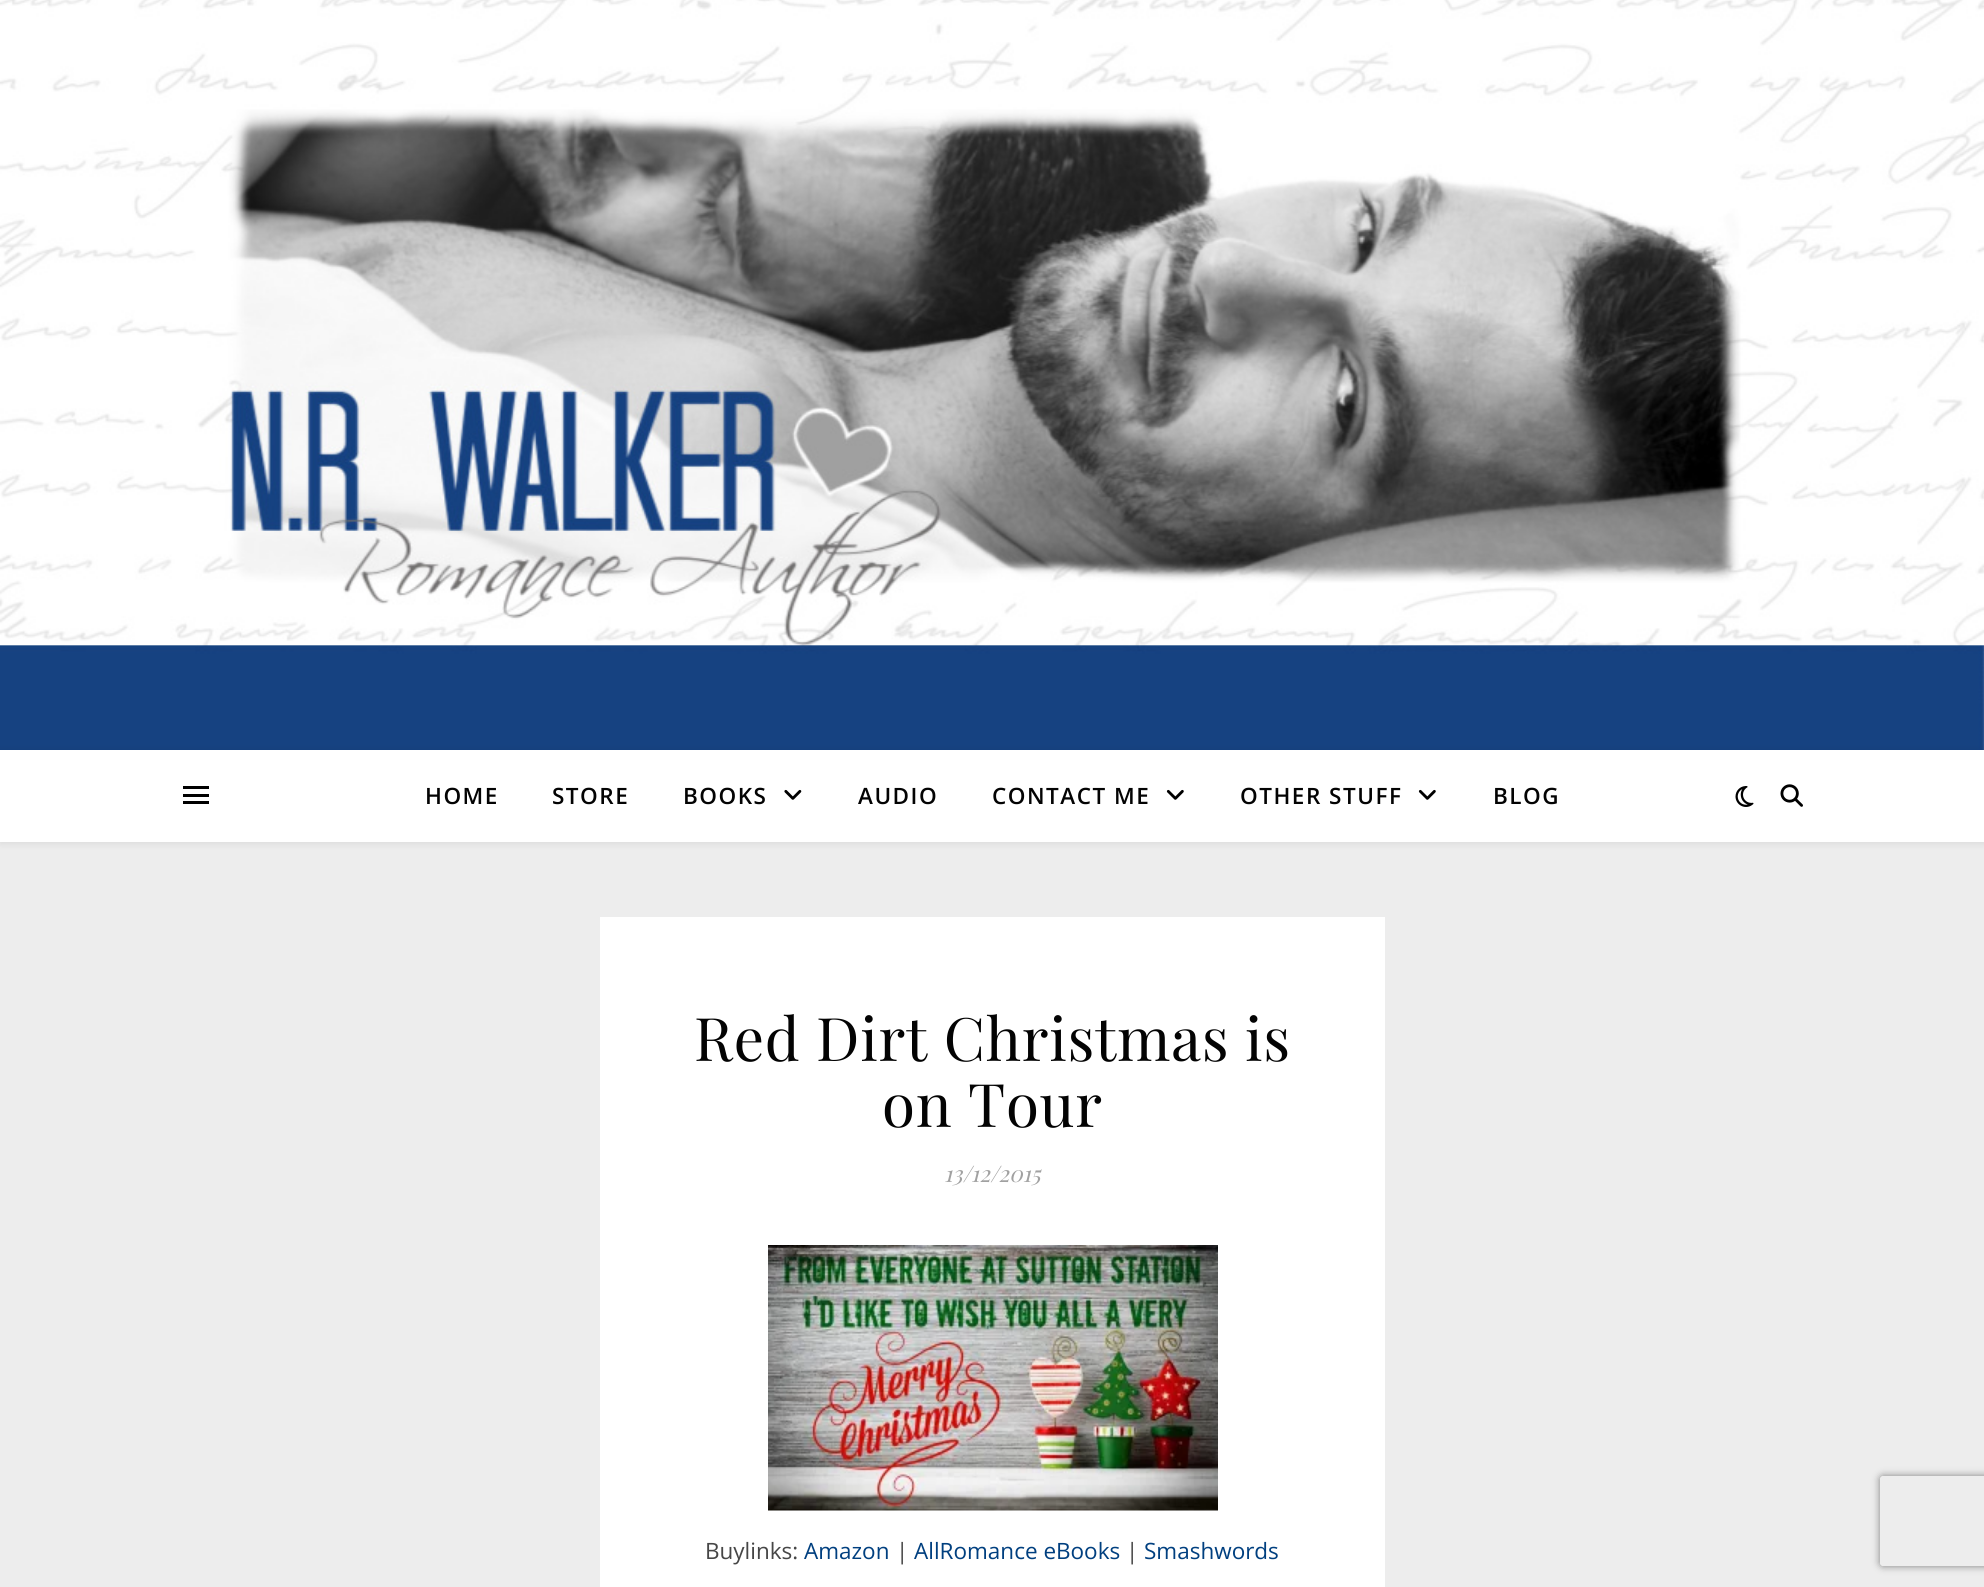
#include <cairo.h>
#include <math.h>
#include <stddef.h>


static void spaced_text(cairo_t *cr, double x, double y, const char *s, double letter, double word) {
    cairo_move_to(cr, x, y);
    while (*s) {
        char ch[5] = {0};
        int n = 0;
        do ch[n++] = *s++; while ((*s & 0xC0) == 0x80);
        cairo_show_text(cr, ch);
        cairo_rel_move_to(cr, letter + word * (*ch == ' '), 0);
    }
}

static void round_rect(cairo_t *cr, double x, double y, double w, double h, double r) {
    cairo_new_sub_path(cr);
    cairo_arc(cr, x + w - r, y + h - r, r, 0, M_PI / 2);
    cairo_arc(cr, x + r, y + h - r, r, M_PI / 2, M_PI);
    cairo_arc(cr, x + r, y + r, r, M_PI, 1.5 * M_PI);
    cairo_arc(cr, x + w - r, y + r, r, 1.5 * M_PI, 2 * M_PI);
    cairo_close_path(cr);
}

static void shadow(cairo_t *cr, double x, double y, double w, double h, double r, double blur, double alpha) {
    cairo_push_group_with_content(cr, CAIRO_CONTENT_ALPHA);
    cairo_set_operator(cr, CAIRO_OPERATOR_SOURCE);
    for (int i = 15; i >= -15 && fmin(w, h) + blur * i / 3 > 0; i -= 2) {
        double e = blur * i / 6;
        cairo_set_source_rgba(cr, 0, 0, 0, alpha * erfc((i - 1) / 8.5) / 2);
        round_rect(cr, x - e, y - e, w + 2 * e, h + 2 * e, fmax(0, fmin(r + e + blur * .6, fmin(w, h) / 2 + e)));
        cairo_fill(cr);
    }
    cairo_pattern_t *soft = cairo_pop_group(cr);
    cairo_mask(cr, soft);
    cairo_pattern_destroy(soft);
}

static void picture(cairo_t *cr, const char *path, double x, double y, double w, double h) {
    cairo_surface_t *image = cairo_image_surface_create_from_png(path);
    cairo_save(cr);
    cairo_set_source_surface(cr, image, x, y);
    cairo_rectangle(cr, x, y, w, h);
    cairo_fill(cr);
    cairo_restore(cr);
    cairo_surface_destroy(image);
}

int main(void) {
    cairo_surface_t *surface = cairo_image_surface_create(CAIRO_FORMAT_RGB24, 1984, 1587);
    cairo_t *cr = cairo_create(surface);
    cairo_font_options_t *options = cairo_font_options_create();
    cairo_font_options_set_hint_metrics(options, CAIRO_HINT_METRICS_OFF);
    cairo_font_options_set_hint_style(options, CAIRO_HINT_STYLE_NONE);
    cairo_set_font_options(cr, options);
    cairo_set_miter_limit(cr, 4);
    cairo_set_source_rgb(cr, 0.929, 0.929, 0.929);
    cairo_paint(cr);
    picture(cr, "img1.png", 0, 0, 1984, 750);
    cairo_set_source_rgb(cr, 0, 0, 0);
    shadow(cr, 0, 752, 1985, 91, 0, 4, 0.1);
    cairo_set_source_rgb(cr, 1, 1, 1);
    cairo_rectangle(cr, 0, 750, 1984, 92);
    cairo_fill(cr);
    cairo_set_source_rgb(cr, 0, 0, 0);
    cairo_rectangle(cr, 183, 786, 26, 3);
    cairo_fill(cr);
    cairo_rectangle(cr, 183, 794, 26, 3);
    cairo_fill(cr);
    cairo_rectangle(cr, 183, 801, 26, 3);
    cairo_fill(cr);
    cairo_select_font_face(cr, "Open Sans SemiBold", CAIRO_FONT_SLANT_NORMAL, CAIRO_FONT_WEIGHT_NORMAL);
    cairo_set_font_size(cr, 22.5);
    cairo_set_source_rgb(cr, 0.012, 0.012, 0.012);
    spaced_text(cr, 425, 804, "HOME", 1.5, 0);
    spaced_text(cr, 552, 804, "STORE", 1.5, 0);
    spaced_text(cr, 683, 804, "BOOKS", 1.5, 0);
    picture(cr, "img2.png", 784, 789, 18, 11);
    spaced_text(cr, 858, 804, "AUDIO", 1.5, 0);
    spaced_text(cr, 992, 804, "CONTACT ME", 1.5, 0);
    picture(cr, "img3.png", 1166, 789, 18, 11);
    spaced_text(cr, 1240, 804, "OTHER STUFF", 1.5, 0);
    picture(cr, "img3.png", 1418, 789, 18, 11);
    spaced_text(cr, 1493, 804, "BLOG", 1.5, 0);
    picture(cr, "img4.png", 1735, 786, 19, 21);
    picture(cr, "img5.png", 1780, 784, 23, 23);
    cairo_set_source_rgb(cr, 1, 1, 1);
    cairo_rectangle(cr, 600, 917, 785, 670);
    cairo_fill(cr);
    cairo_select_font_face(cr, "Playfair Display", CAIRO_FONT_SLANT_NORMAL, CAIRO_FONT_WEIGHT_NORMAL);
    cairo_set_font_size(cr, 60);
    cairo_set_source_rgb(cr, 0.012, 0.012, 0.012);
    spaced_text(cr, 694, 1061, "Red Dirt Christmas is", 0.75, 0);
    spaced_text(cr, 882, 1127, "on Tour", 0.75, 0);
    cairo_select_font_face(cr, "Playfair Display", CAIRO_FONT_SLANT_ITALIC, CAIRO_FONT_WEIGHT_NORMAL);
    cairo_set_font_size(cr, 22.5);
    cairo_set_source_rgb(cr, 0.631, 0.631, 0.631);
    cairo_move_to(cr, 944, 1182);
    cairo_show_text(cr, "13/12/2015");
    picture(cr, "img6.png", 768, 1245, 450, 266);
    cairo_select_font_face(cr, "Open Sans", CAIRO_FONT_SLANT_NORMAL, CAIRO_FONT_WEIGHT_NORMAL);
    cairo_set_source_rgb(cr, 0.275, 0.275, 0.275);
    cairo_move_to(cr, 705, 1559);
    cairo_show_text(cr, "Buylinks:");
    cairo_set_source_rgb(cr, 0, 0.247, 0.498);
    cairo_move_to(cr, 804, 1559);
    cairo_show_text(cr, "Amazon");
    cairo_set_source_rgb(cr, 0.275, 0.275, 0.275);
    cairo_move_to(cr, 896, 1559);
    cairo_show_text(cr, "|");
    cairo_set_source_rgb(cr, 0, 0.247, 0.498);
    cairo_move_to(cr, 914, 1559);
    cairo_show_text(cr, "AllRomance eBooks");
    cairo_set_source_rgb(cr, 0.275, 0.275, 0.275);
    cairo_move_to(cr, 1126, 1559);
    cairo_show_text(cr, "|");
    cairo_set_source_rgb(cr, 0, 0.247, 0.498);
    cairo_move_to(cr, 1144, 1559);
    cairo_show_text(cr, "Smashwords");
    cairo_save(cr);
    cairo_set_fill_rule(cr, CAIRO_FILL_RULE_EVEN_ODD);
    cairo_new_path(cr);
    cairo_move_to(cr, 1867, 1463);
    cairo_line_to(cr, 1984, 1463);
    cairo_line_to(cr, 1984, 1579);
    cairo_line_to(cr, 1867, 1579);
    cairo_close_path(cr);
    cairo_move_to(cr, 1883, 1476);
    cairo_line_to(cr, 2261, 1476);
    cairo_curve_to(cr, 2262.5, 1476, 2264, 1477.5, 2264, 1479);
    cairo_line_to(cr, 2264, 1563);
    cairo_curve_to(cr, 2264, 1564.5, 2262.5, 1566, 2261, 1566);
    cairo_line_to(cr, 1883, 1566);
    cairo_curve_to(cr, 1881.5, 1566, 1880, 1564.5, 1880, 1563);
    cairo_line_to(cr, 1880, 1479);
    cairo_curve_to(cr, 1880, 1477.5, 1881.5, 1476, 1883, 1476);
    cairo_close_path(cr);
    cairo_clip(cr);
    cairo_set_source_rgb(cr, 0.502, 0.502, 0.502);
    shadow(cr, 1880, 1476, 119, 90, 3, 4, 1);
    cairo_restore(cr);
    cairo_surface_write_to_png(surface, "page.png");
    cairo_font_options_destroy(options);
    cairo_destroy(cr);
    cairo_surface_destroy(surface);
    return 0;
}
